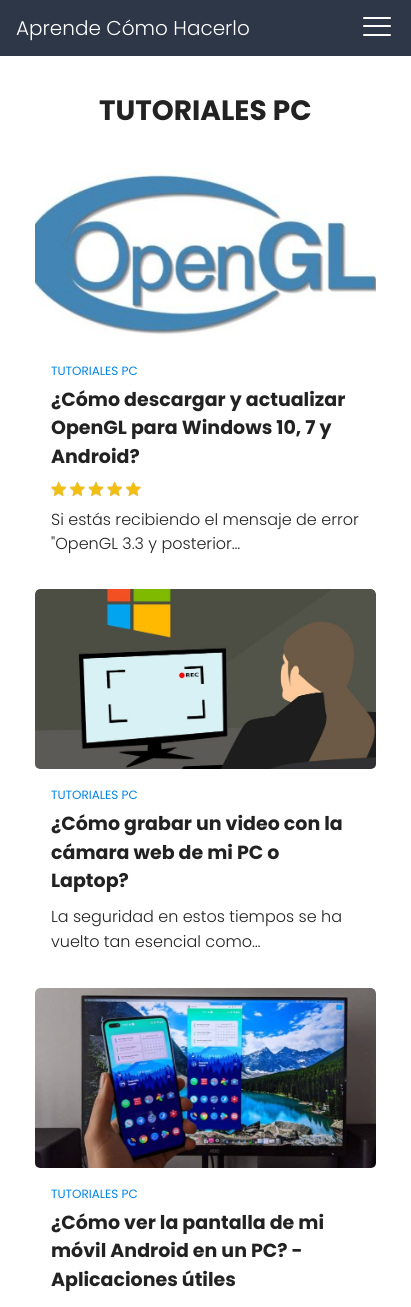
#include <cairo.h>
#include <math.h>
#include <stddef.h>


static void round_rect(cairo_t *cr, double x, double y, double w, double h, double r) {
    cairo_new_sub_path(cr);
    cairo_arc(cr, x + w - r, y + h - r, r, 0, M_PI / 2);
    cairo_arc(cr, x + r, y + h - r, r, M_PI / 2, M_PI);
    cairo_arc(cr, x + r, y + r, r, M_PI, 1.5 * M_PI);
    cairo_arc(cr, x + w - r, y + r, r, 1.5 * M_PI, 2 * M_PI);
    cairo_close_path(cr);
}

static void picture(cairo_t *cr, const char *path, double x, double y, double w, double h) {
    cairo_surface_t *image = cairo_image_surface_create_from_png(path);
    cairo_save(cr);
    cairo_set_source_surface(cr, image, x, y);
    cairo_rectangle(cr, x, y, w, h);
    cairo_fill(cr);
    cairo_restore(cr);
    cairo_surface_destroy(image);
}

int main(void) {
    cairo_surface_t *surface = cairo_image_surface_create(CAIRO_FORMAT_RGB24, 411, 1307);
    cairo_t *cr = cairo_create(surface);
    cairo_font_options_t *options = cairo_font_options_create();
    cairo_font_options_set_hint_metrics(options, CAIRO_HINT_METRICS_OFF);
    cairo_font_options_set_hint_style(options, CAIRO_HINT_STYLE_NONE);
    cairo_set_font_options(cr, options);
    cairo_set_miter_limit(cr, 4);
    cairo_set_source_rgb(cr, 1, 1, 1);
    cairo_paint(cr);
    cairo_set_source_rgb(cr, 0.176, 0.216, 0.282);
    cairo_rectangle(cr, 0, 0, 411, 56);
    cairo_fill(cr);
    cairo_select_font_face(cr, "Poppins Light", CAIRO_FONT_SLANT_NORMAL, CAIRO_FONT_WEIGHT_NORMAL);
    cairo_set_font_size(cr, 20);
    cairo_set_source_rgb(cr, 1, 1, 1);
    cairo_move_to(cr, 16, 35);
    cairo_show_text(cr, "Aprende Cómo Hacerlo");
    round_rect(cr, 363, 17, 28, 2, 1);
    cairo_fill(cr);
    round_rect(cr, 363, 25, 28, 2, 1);
    cairo_fill(cr);
    round_rect(cr, 363, 34, 28, 2, 1);
    cairo_fill(cr);
    cairo_select_font_face(cr, "Poppins", CAIRO_FONT_SLANT_NORMAL, CAIRO_FONT_WEIGHT_BOLD);
    cairo_set_font_size(cr, 28);
    cairo_set_source_rgb(cr, 0.133, 0.133, 0.133);
    cairo_move_to(cr, 99, 120);
    cairo_show_text(cr, "TUTORIALES PC");
    picture(cr, "img1.png", 35, 168, 341, 167);
    cairo_select_font_face(cr, "Poppins", CAIRO_FONT_SLANT_NORMAL, CAIRO_FONT_WEIGHT_NORMAL);
    cairo_set_font_size(cr, 12);
    cairo_set_source_rgb(cr, 0.004, 0.514, 0.894);
    cairo_move_to(cr, 51, 375);
    cairo_show_text(cr, "TUTORIALES PC");
    cairo_select_font_face(cr, "Poppins", CAIRO_FONT_SLANT_NORMAL, CAIRO_FONT_WEIGHT_BOLD);
    cairo_set_font_size(cr, 19);
    cairo_set_source_rgb(cr, 0.133, 0.133, 0.133);
    cairo_move_to(cr, 51, 406);
    cairo_show_text(cr, "¿Cómo descargar y actualizar");
    cairo_move_to(cr, 51, 434);
    cairo_show_text(cr, "OpenGL para Windows 10, 7 y");
    cairo_move_to(cr, 51, 463);
    cairo_show_text(cr, "Android?");
    picture(cr, "img2.png", 51, 482, 90, 14);
    picture(cr, "img3.png", 51, 482, 90, 14);
    cairo_select_font_face(cr, "Poppins Light", CAIRO_FONT_SLANT_NORMAL, CAIRO_FONT_WEIGHT_NORMAL);
    cairo_set_font_size(cr, 16);
    cairo_move_to(cr, 51, 525);
    cairo_show_text(cr, "Si estás recibiendo el mensaje de error");
    cairo_move_to(cr, 51, 549);
    cairo_show_text(cr, "\"OpenGL 3.3 y posterior…");
    picture(cr, "img4.png", 35, 589, 341, 180);
    cairo_select_font_face(cr, "Poppins", CAIRO_FONT_SLANT_NORMAL, CAIRO_FONT_WEIGHT_NORMAL);
    cairo_set_font_size(cr, 12);
    cairo_set_source_rgb(cr, 0.004, 0.514, 0.894);
    cairo_move_to(cr, 51, 799);
    cairo_show_text(cr, "TUTORIALES PC");
    cairo_select_font_face(cr, "Poppins", CAIRO_FONT_SLANT_NORMAL, CAIRO_FONT_WEIGHT_BOLD);
    cairo_set_font_size(cr, 19);
    cairo_set_source_rgb(cr, 0.133, 0.133, 0.133);
    cairo_move_to(cr, 51, 830);
    cairo_show_text(cr, "¿Cómo grabar un video con la");
    cairo_move_to(cr, 51, 859);
    cairo_show_text(cr, "cámara web de mi PC o");
    cairo_move_to(cr, 51, 887);
    cairo_show_text(cr, "Laptop?");
    cairo_select_font_face(cr, "Poppins Light", CAIRO_FONT_SLANT_NORMAL, CAIRO_FONT_WEIGHT_NORMAL);
    cairo_set_font_size(cr, 16);
    cairo_move_to(cr, 51, 922);
    cairo_show_text(cr, "La seguridad en estos tiempos se ha");
    cairo_move_to(cr, 51, 947);
    cairo_show_text(cr, "vuelto tan esencial como…");
    picture(cr, "img5.png", 35, 988, 341, 180);
    cairo_select_font_face(cr, "Poppins", CAIRO_FONT_SLANT_NORMAL, CAIRO_FONT_WEIGHT_NORMAL);
    cairo_set_font_size(cr, 12);
    cairo_set_source_rgb(cr, 0.004, 0.514, 0.894);
    cairo_move_to(cr, 51, 1198);
    cairo_show_text(cr, "TUTORIALES PC");
    cairo_select_font_face(cr, "Poppins", CAIRO_FONT_SLANT_NORMAL, CAIRO_FONT_WEIGHT_BOLD);
    cairo_set_font_size(cr, 19);
    cairo_set_source_rgb(cr, 0.133, 0.133, 0.133);
    cairo_move_to(cr, 51, 1229);
    cairo_show_text(cr, "¿Cómo ver la pantalla de mi");
    cairo_move_to(cr, 51, 1257);
    cairo_show_text(cr, "móvil Android en un PC? -");
    cairo_move_to(cr, 51, 1286);
    cairo_show_text(cr, "Aplicaciones útiles");
    cairo_surface_write_to_png(surface, "page.png");
    cairo_font_options_destroy(options);
    cairo_destroy(cr);
    cairo_surface_destroy(surface);
    return 0;
}
